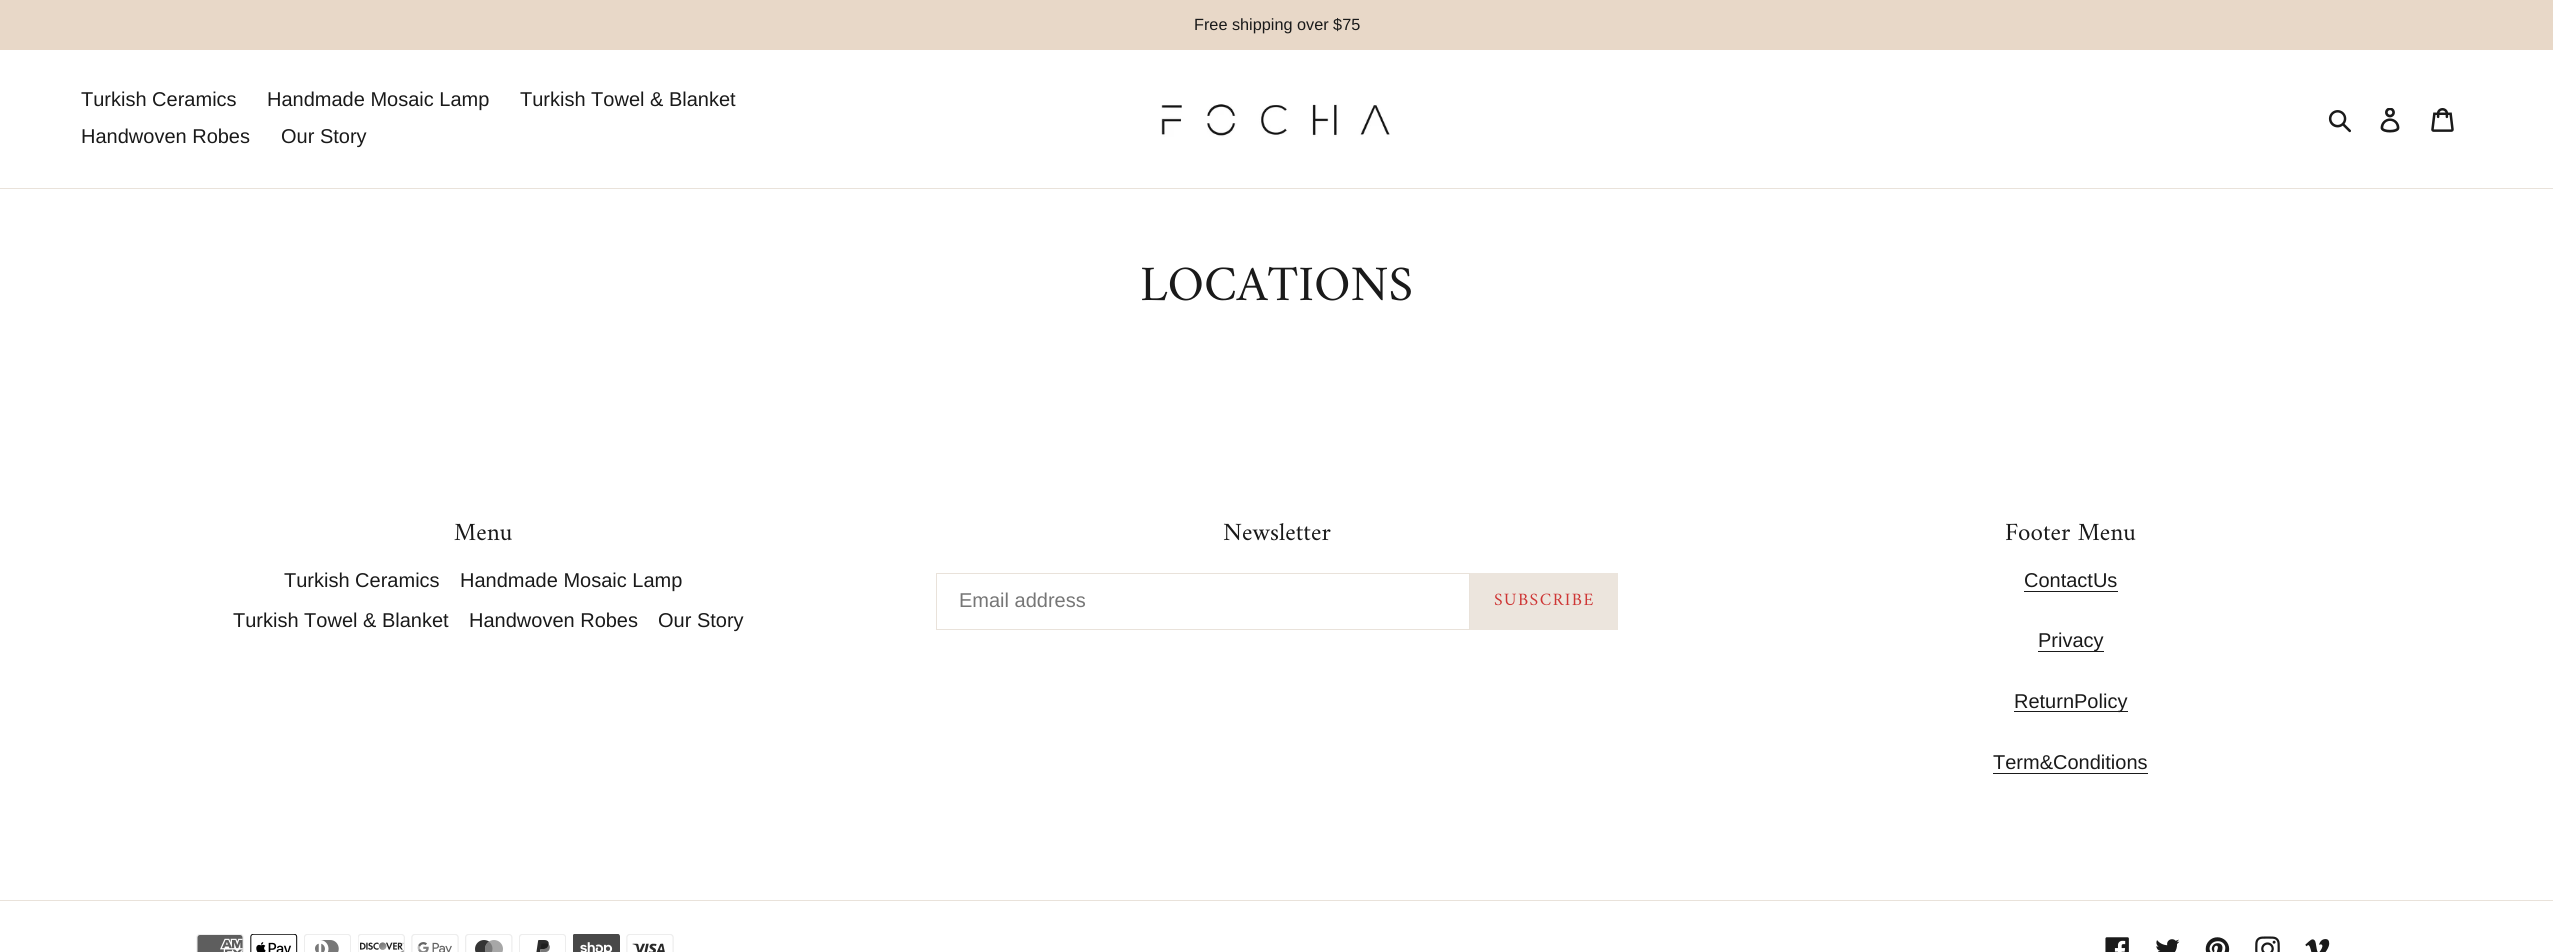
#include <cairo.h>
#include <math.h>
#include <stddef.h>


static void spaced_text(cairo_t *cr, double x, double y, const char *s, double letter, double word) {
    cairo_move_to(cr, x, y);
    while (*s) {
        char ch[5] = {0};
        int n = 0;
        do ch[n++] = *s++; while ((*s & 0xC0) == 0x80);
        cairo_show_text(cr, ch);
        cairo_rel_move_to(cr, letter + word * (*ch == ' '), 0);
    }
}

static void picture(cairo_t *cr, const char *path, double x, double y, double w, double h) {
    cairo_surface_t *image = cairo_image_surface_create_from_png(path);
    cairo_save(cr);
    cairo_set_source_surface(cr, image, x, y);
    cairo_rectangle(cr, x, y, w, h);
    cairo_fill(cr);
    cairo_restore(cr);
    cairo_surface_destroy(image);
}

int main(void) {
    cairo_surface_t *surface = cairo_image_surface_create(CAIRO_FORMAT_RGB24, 2553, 952);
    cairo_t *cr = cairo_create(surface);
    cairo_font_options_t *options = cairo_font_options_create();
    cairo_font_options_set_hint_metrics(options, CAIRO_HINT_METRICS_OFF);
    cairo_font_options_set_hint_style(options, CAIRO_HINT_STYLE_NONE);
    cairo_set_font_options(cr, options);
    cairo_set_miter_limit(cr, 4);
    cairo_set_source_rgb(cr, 1, 1, 1);
    cairo_paint(cr);
    cairo_set_source_rgb(cr, 0.91, 0.847, 0.784);
    cairo_rectangle(cr, 0, 0, 2553, 50);
    cairo_fill(cr);
    cairo_select_font_face(cr, "Liberation Sans", CAIRO_FONT_SLANT_NORMAL, CAIRO_FONT_WEIGHT_NORMAL);
    cairo_set_font_size(cr, 16.25);
    cairo_set_source_rgb(cr, 0.102, 0.102, 0.102);
    cairo_move_to(cr, 1194, 30);
    cairo_show_text(cr, "Free shipping over $75");
    cairo_set_source_rgb(cr, 0.914, 0.886, 0.855);
    cairo_rectangle(cr, 0, 188, 2553, 1);
    cairo_fill(cr);
    cairo_set_font_size(cr, 20);
    cairo_set_source_rgb(cr, 0.102, 0.102, 0.102);
    cairo_move_to(cr, 81, 106);
    cairo_show_text(cr, "Turkish Ceramics");
    cairo_move_to(cr, 267, 106);
    cairo_show_text(cr, "Handmade Mosaic Lamp");
    cairo_move_to(cr, 520, 106);
    cairo_show_text(cr, "Turkish Towel & Blanket");
    cairo_move_to(cr, 81, 143);
    cairo_show_text(cr, "Handwoven Robes");
    cairo_move_to(cr, 281, 143);
    cairo_show_text(cr, "Our Story");
    picture(cr, "img1.png", 1161, 104, 229, 33);
    picture(cr, "img2.png", 2328, 110, 23, 23);
    picture(cr, "img3.png", 2380, 108, 20, 25);
    picture(cr, "img4.png", 2431, 108, 23, 24);
    cairo_select_font_face(cr, "Amiri", CAIRO_FONT_SLANT_NORMAL, CAIRO_FONT_WEIGHT_NORMAL);
    cairo_set_font_size(cr, 50);
    cairo_move_to(cr, 1140, 300);
    cairo_show_text(cr, "LOCATIONS");
    cairo_set_font_size(cr, 25);
    cairo_move_to(cr, 454, 540);
    cairo_show_text(cr, "Menu");
    cairo_select_font_face(cr, "Liberation Sans", CAIRO_FONT_SLANT_NORMAL, CAIRO_FONT_WEIGHT_NORMAL);
    cairo_set_font_size(cr, 20);
    cairo_move_to(cr, 284, 587);
    cairo_show_text(cr, "Turkish Ceramics");
    cairo_move_to(cr, 460, 587);
    cairo_show_text(cr, "Handmade Mosaic Lamp");
    cairo_move_to(cr, 233, 627);
    cairo_show_text(cr, "Turkish Towel & Blanket");
    cairo_move_to(cr, 469, 627);
    cairo_show_text(cr, "Handwoven Robes");
    cairo_move_to(cr, 658, 627);
    cairo_show_text(cr, "Our Story");
    cairo_select_font_face(cr, "Amiri", CAIRO_FONT_SLANT_NORMAL, CAIRO_FONT_WEIGHT_NORMAL);
    cairo_set_font_size(cr, 25);
    cairo_move_to(cr, 1223, 540);
    cairo_show_text(cr, "Newsletter");
    cairo_rectangle(cr, 936.5, 573.5, 533, 56);
    cairo_set_source_rgb(cr, 0.914, 0.886, 0.855);
    cairo_set_line_width(cr, 1);
    cairo_stroke(cr);
    cairo_select_font_face(cr, "Liberation Sans", CAIRO_FONT_SLANT_NORMAL, CAIRO_FONT_WEIGHT_NORMAL);
    cairo_set_font_size(cr, 20);
    cairo_set_source_rgb(cr, 0.463, 0.463, 0.463);
    cairo_move_to(cr, 959, 607);
    cairo_show_text(cr, "Email address");
    cairo_set_source_rgb(cr, 0.925, 0.898, 0.867);
    cairo_rectangle(cr, 1470, 573, 148, 57);
    cairo_fill(cr);
    cairo_select_font_face(cr, "Amiri", CAIRO_FONT_SLANT_NORMAL, CAIRO_FONT_WEIGHT_NORMAL);
    cairo_set_font_size(cr, 17.5);
    cairo_set_source_rgb(cr, 0.808, 0.212, 0.208);
    spaced_text(cr, 1494, 605, "SUBSCRIBE", 1.5, 0);
    cairo_set_font_size(cr, 25);
    cairo_set_source_rgb(cr, 0.102, 0.102, 0.102);
    cairo_move_to(cr, 2005, 540);
    cairo_show_text(cr, "Footer Menu");
    cairo_select_font_face(cr, "Liberation Sans", CAIRO_FONT_SLANT_NORMAL, CAIRO_FONT_WEIGHT_NORMAL);
    cairo_set_font_size(cr, 20);
    cairo_move_to(cr, 2024, 587);
    cairo_show_text(cr, "ContactUs");
    cairo_rectangle(cr, 2024, 591, 94, 1);
    cairo_fill(cr);
    cairo_rectangle(cr, 2038, 651, 66, 1);
    cairo_fill(cr);
    cairo_move_to(cr, 2038, 647);
    cairo_show_text(cr, "Privacy");
    cairo_rectangle(cr, 2014, 711, 114, 1);
    cairo_fill(cr);
    cairo_move_to(cr, 2014, 708);
    cairo_show_text(cr, "ReturnPolicy");
    cairo_move_to(cr, 1993, 769);
    cairo_show_text(cr, "Term&Conditions");
    cairo_rectangle(cr, 1993, 773, 155, 1);
    cairo_fill(cr);
    cairo_set_source_rgb(cr, 0.914, 0.886, 0.855);
    cairo_rectangle(cr, 0, 900, 2553, 1);
    cairo_fill(cr);
    picture(cr, "img5.png", 196, 934, 48, 18);
    picture(cr, "img6.png", 250, 934, 48, 18);
    picture(cr, "img7.png", 304, 934, 47, 18);
    picture(cr, "img8.png", 358, 934, 47, 18);
    picture(cr, "img9.png", 411, 934, 48, 18);
    picture(cr, "img10.png", 465, 934, 48, 18);
    picture(cr, "img11.png", 519, 934, 47, 18);
    picture(cr, "img12.png", 573, 934, 47, 18);
    picture(cr, "img13.png", 626, 934, 48, 18);
    picture(cr, "img14.png", 2105, 937, 24, 15);
    picture(cr, "img15.png", 2156, 939, 24, 13);
    picture(cr, "img16.png", 2205, 937, 25, 15);
    picture(cr, "img17.png", 2255, 936, 25, 16);
    picture(cr, "img18.png", 2305, 939, 25, 13);
    cairo_surface_write_to_png(surface, "page.png");
    cairo_font_options_destroy(options);
    cairo_destroy(cr);
    cairo_surface_destroy(surface);
    return 0;
}
